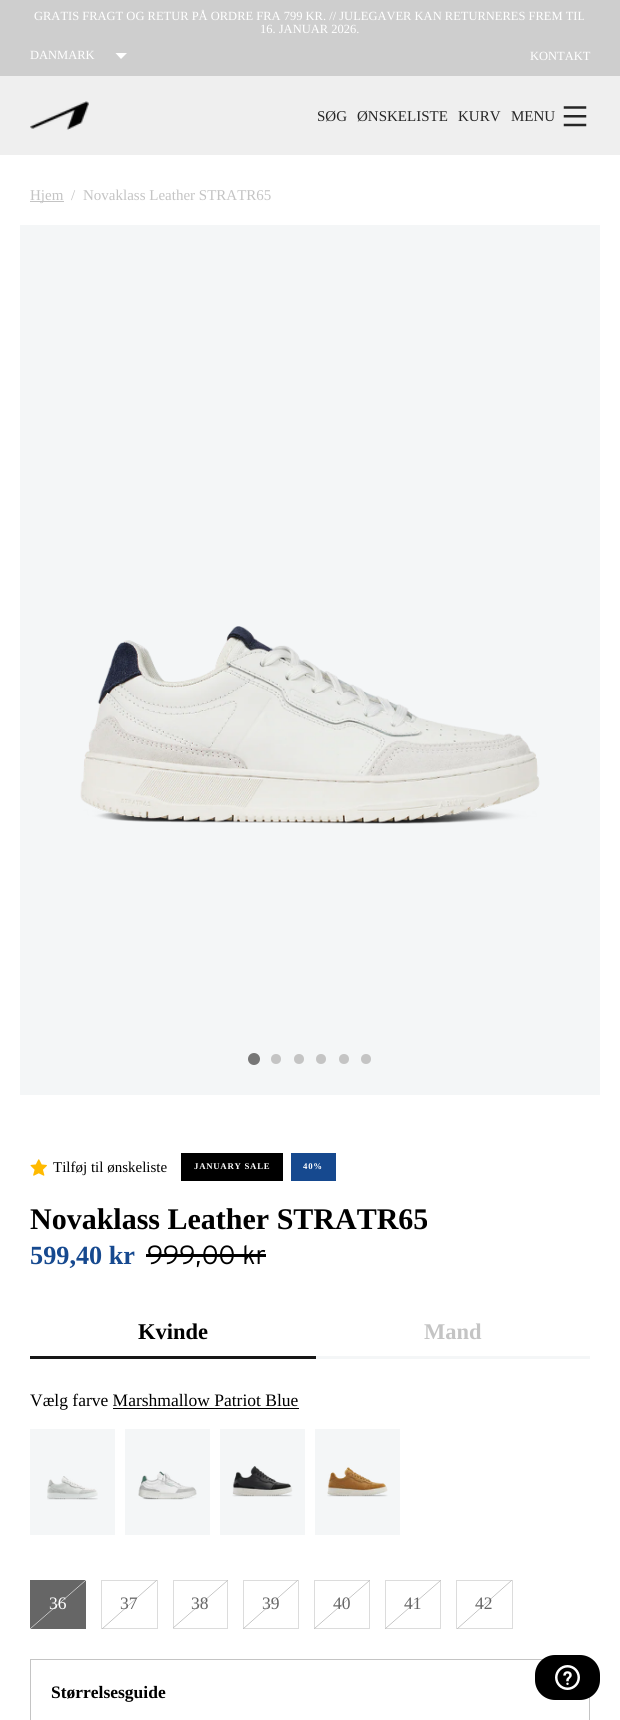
#include <cairo.h>
#include <math.h>
#include <stddef.h>


static void spaced_text(cairo_t *cr, double x, double y, const char *s, double letter, double word) {
    cairo_move_to(cr, x, y);
    while (*s) {
        char ch[5] = {0};
        int n = 0;
        do ch[n++] = *s++; while ((*s & 0xC0) == 0x80);
        cairo_show_text(cr, ch);
        cairo_rel_move_to(cr, letter + word * (*ch == ' '), 0);
    }
}

static void round_rect(cairo_t *cr, double x, double y, double w, double h, double r) {
    cairo_new_sub_path(cr);
    cairo_arc(cr, x + w - r, y + h - r, r, 0, M_PI / 2);
    cairo_arc(cr, x + r, y + h - r, r, M_PI / 2, M_PI);
    cairo_arc(cr, x + r, y + r, r, M_PI, 1.5 * M_PI);
    cairo_arc(cr, x + w - r, y + r, r, 1.5 * M_PI, 2 * M_PI);
    cairo_close_path(cr);
}

static void picture(cairo_t *cr, const char *path, double x, double y, double w, double h) {
    cairo_surface_t *image = cairo_image_surface_create_from_png(path);
    cairo_save(cr);
    cairo_set_source_surface(cr, image, x, y);
    cairo_rectangle(cr, x, y, w, h);
    cairo_fill(cr);
    cairo_restore(cr);
    cairo_surface_destroy(image);
}

int main(void) {
    cairo_surface_t *surface = cairo_image_surface_create(CAIRO_FORMAT_RGB24, 620, 1720);
    cairo_t *cr = cairo_create(surface);
    cairo_font_options_t *options = cairo_font_options_create();
    cairo_font_options_set_hint_metrics(options, CAIRO_HINT_METRICS_OFF);
    cairo_font_options_set_hint_style(options, CAIRO_HINT_STYLE_NONE);
    cairo_set_font_options(cr, options);
    cairo_set_miter_limit(cr, 4);
    cairo_pattern_t *gradient;
    cairo_set_source_rgb(cr, 1, 1, 1);
    cairo_paint(cr);
    cairo_set_source_rgb(cr, 0.808, 0.808, 0.808);
    cairo_rectangle(cr, 0, 0, 620, 76);
    cairo_fill(cr);
    cairo_select_font_face(cr, "Liberation Serif", CAIRO_FONT_SLANT_NORMAL, CAIRO_FONT_WEIGHT_NORMAL);
    cairo_set_font_size(cr, 12.5);
    cairo_set_source_rgb(cr, 1, 1, 1);
    cairo_move_to(cr, 34, 20);
    cairo_show_text(cr, "GRATIS FRAGT OG RETUR PÅ ORDRE FRA 799 KR. // JULEGAVER KAN RETURNERES FREM TIL");
    cairo_move_to(cr, 260, 33);
    cairo_show_text(cr, "16. JANUAR 2026.");
    cairo_move_to(cr, 30, 59);
    cairo_show_text(cr, "DANMARK");
    cairo_new_path(cr);
    cairo_move_to(cr, 121, 59);
    cairo_line_to(cr, 115.5, 53);
    cairo_line_to(cr, 127, 53);
    cairo_close_path(cr);
    cairo_fill(cr);
    cairo_move_to(cr, 530, 60);
    cairo_show_text(cr, "KONTAKT");
    cairo_set_source_rgb(cr, 0.937, 0.937, 0.937);
    cairo_rectangle(cr, 0, 76, 620, 79);
    cairo_fill(cr);
    picture(cr, "img1.png", 30, 101, 59, 29);
    cairo_set_font_size(cr, 15);
    cairo_set_source_rgb(cr, 0.149, 0.149, 0.149);
    cairo_move_to(cr, 317, 121);
    cairo_show_text(cr, "SØG");
    cairo_move_to(cr, 357, 121);
    cairo_show_text(cr, "ØNSKELISTE");
    cairo_move_to(cr, 458, 121);
    cairo_show_text(cr, "KURV");
    cairo_move_to(cr, 511, 121);
    cairo_show_text(cr, "MENU");
    picture(cr, "img2.png", 563, 106, 24, 21);
    cairo_set_source_rgb(cr, 0.769, 0.769, 0.769);
    cairo_rectangle(cr, 30, 201, 34, 1);
    cairo_fill(cr);
    cairo_move_to(cr, 30, 200);
    cairo_show_text(cr, "Hjem");
    cairo_move_to(cr, 71, 200);
    cairo_show_text(cr, "/");
    cairo_move_to(cr, 83, 200);
    cairo_show_text(cr, "Novaklass Leather STRATR65");
    cairo_set_source_rgb(cr, 0.957, 0.961, 0.965);
    cairo_rectangle(cr, 20, 225, 580, 870);
    cairo_fill(cr);
    picture(cr, "img3.png", 80, 626, 460, 198);
    cairo_set_source_rgb(cr, 0.463, 0.463, 0.463);
    cairo_arc(cr, 254, 1059, 6, 0, 2 * M_PI);
    cairo_fill(cr);
    cairo_set_source_rgb(cr, 0.769, 0.769, 0.769);
    cairo_arc(cr, 276, 1059, 5, 0, 2 * M_PI);
    cairo_fill(cr);
    cairo_arc(cr, 299, 1059, 5, 0, 2 * M_PI);
    cairo_fill(cr);
    cairo_arc(cr, 321, 1059, 5, 0, 2 * M_PI);
    cairo_fill(cr);
    cairo_arc(cr, 344, 1059, 5, 0, 2 * M_PI);
    cairo_fill(cr);
    cairo_arc(cr, 366, 1059, 5, 0, 2 * M_PI);
    cairo_fill(cr);
    picture(cr, "img4.png", 30, 1159, 17, 17);
    cairo_set_source_rgb(cr, 0, 0, 0);
    cairo_move_to(cr, 53, 1172);
    cairo_show_text(cr, "Tilføj til ønskeliste");
    cairo_rectangle(cr, 181, 1153, 102, 28);
    cairo_fill(cr);
    cairo_select_font_face(cr, "Liberation Serif", CAIRO_FONT_SLANT_NORMAL, CAIRO_FONT_WEIGHT_BOLD);
    cairo_set_font_size(cr, 8.75);
    cairo_set_source_rgb(cr, 1, 1, 1);
    spaced_text(cr, 194, 1169, "JANUARY SALE", 0.75, 0);
    cairo_set_source_rgb(cr, 0.086, 0.286, 0.561);
    cairo_rectangle(cr, 291, 1153, 45, 28);
    cairo_fill(cr);
    cairo_set_source_rgb(cr, 1, 1, 1);
    spaced_text(cr, 303, 1169, "40%", 0.75, 0);
    cairo_set_font_size(cr, 30);
    cairo_set_source_rgb(cr, 0, 0, 0);
    cairo_move_to(cr, 30, 1229);
    cairo_show_text(cr, "Novaklass Leather STRATR65");
    cairo_set_font_size(cr, 26.25);
    cairo_set_source_rgb(cr, 0.086, 0.286, 0.561);
    cairo_move_to(cr, 30, 1264);
    cairo_show_text(cr, "599,40 kr");
    cairo_select_font_face(cr, "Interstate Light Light", CAIRO_FONT_SLANT_NORMAL, CAIRO_FONT_WEIGHT_NORMAL);
    cairo_set_source_rgb(cr, 0, 0, 0);
    cairo_move_to(cr, 147, 1264);
    cairo_show_text(cr, "999,00 kr");
    cairo_rectangle(cr, 146, 1254, 120, 3);
    cairo_fill(cr);
    cairo_set_source_rgb(cr, 0.09, 0.09, 0.09);
    cairo_rectangle(cr, 30, 1356, 286, 3);
    cairo_fill(cr);
    cairo_select_font_face(cr, "Liberation Serif", CAIRO_FONT_SLANT_NORMAL, CAIRO_FONT_WEIGHT_BOLD);
    cairo_set_font_size(cr, 22.5);
    cairo_set_source_rgb(cr, 0, 0, 0);
    cairo_move_to(cr, 138, 1339);
    cairo_show_text(cr, "Kvinde");
    cairo_set_source_rgb(cr, 0.957, 0.961, 0.965);
    cairo_rectangle(cr, 316, 1356, 274, 3);
    cairo_fill(cr);
    cairo_set_source_rgb(cr, 0.769, 0.769, 0.769);
    cairo_move_to(cr, 424, 1339);
    cairo_show_text(cr, "Mand");
    cairo_select_font_face(cr, "Liberation Serif", CAIRO_FONT_SLANT_NORMAL, CAIRO_FONT_WEIGHT_NORMAL);
    cairo_set_font_size(cr, 17.5);
    cairo_set_source_rgb(cr, 0, 0, 0);
    cairo_move_to(cr, 30, 1406);
    cairo_show_text(cr, "Vælg farve Marshmallow Patriot Blue");
    cairo_rectangle(cr, 113, 1408, 186, 1);
    cairo_fill(cr);
    cairo_set_source_rgb(cr, 0.957, 0.961, 0.965);
    cairo_rectangle(cr, 30, 1429, 85, 106);
    cairo_fill(cr);
    picture(cr, "img5.png", 47, 1476, 51, 24);
    cairo_rectangle(cr, 125, 1429, 85, 106);
    cairo_fill(cr);
    picture(cr, "img6.png", 138, 1471, 59, 29);
    cairo_rectangle(cr, 220, 1429, 85, 106);
    cairo_fill(cr);
    picture(cr, "img7.png", 232, 1466, 61, 31);
    cairo_rectangle(cr, 315, 1429, 85, 106);
    cairo_fill(cr);
    picture(cr, "img8.png", 327, 1467, 61, 30);
    cairo_set_source_rgb(cr, 0.4, 0.4, 0.4);
    cairo_rectangle(cr, 30, 1580, 56, 49);
    cairo_fill(cr);
    gradient = cairo_pattern_create_linear(34, 1577, 82, 1632);
    cairo_pattern_add_color_stop_rgba(gradient, 0, 0, 0, 0, 0);
    cairo_pattern_add_color_stop_rgba(gradient, 0.49, 0.769, 0.769, 0.769, 0);
    cairo_pattern_add_color_stop_rgba(gradient, 0.5, 0.769, 0.769, 0.769, 1);
    cairo_pattern_add_color_stop_rgba(gradient, 0.51, 0.769, 0.769, 0.769, 0);
    cairo_pattern_add_color_stop_rgba(gradient, 1, 0, 0, 0, 0);
    cairo_set_source(cr, gradient);
    cairo_pattern_destroy(gradient);
    cairo_rectangle(cr, 30, 1580, 56, 49);
    cairo_fill(cr);
    cairo_set_source_rgb(cr, 1, 1, 1);
    cairo_move_to(cr, 49, 1609);
    cairo_show_text(cr, "36");
    cairo_rectangle(cr, 101.5, 1580.5, 56, 48);
    cairo_set_source_rgb(cr, 0.863, 0.863, 0.863);
    cairo_set_line_width(cr, 1);
    cairo_stroke(cr);
    gradient = cairo_pattern_create_linear(105, 1577, 154, 1632);
    cairo_pattern_add_color_stop_rgba(gradient, 0, 0, 0, 0, 0);
    cairo_pattern_add_color_stop_rgba(gradient, 0.49, 0.769, 0.769, 0.769, 0);
    cairo_pattern_add_color_stop_rgba(gradient, 0.5, 0.769, 0.769, 0.769, 1);
    cairo_pattern_add_color_stop_rgba(gradient, 0.51, 0.769, 0.769, 0.769, 0);
    cairo_pattern_add_color_stop_rgba(gradient, 1, 0, 0, 0, 0);
    cairo_set_source(cr, gradient);
    cairo_pattern_destroy(gradient);
    cairo_rectangle(cr, 102, 1580, 55, 49);
    cairo_fill(cr);
    cairo_set_source_rgb(cr, 0.4, 0.4, 0.4);
    cairo_move_to(cr, 120, 1609);
    cairo_show_text(cr, "37");
    cairo_rectangle(cr, 173.5, 1580.5, 54, 48);
    cairo_set_source_rgb(cr, 0.863, 0.863, 0.863);
    cairo_stroke(cr);
    gradient = cairo_pattern_create_linear(176, 1577, 224, 1632);
    cairo_pattern_add_color_stop_rgba(gradient, 0, 0, 0, 0, 0);
    cairo_pattern_add_color_stop_rgba(gradient, 0.49, 0.769, 0.769, 0.769, 0);
    cairo_pattern_add_color_stop_rgba(gradient, 0.5, 0.769, 0.769, 0.769, 1);
    cairo_pattern_add_color_stop_rgba(gradient, 0.51, 0.769, 0.769, 0.769, 0);
    cairo_pattern_add_color_stop_rgba(gradient, 1, 0, 0, 0, 0);
    cairo_set_source(cr, gradient);
    cairo_pattern_destroy(gradient);
    cairo_rectangle(cr, 173, 1580, 55, 48);
    cairo_fill(cr);
    cairo_set_source_rgb(cr, 0.4, 0.4, 0.4);
    cairo_move_to(cr, 191, 1609);
    cairo_show_text(cr, "38");
    cairo_rectangle(cr, 243.5, 1580.5, 55, 48);
    cairo_set_source_rgb(cr, 0.863, 0.863, 0.863);
    cairo_stroke(cr);
    gradient = cairo_pattern_create_linear(246, 1577, 295, 1632);
    cairo_pattern_add_color_stop_rgba(gradient, 0, 0, 0, 0, 0);
    cairo_pattern_add_color_stop_rgba(gradient, 0.49, 0.769, 0.769, 0.769, 0);
    cairo_pattern_add_color_stop_rgba(gradient, 0.5, 0.769, 0.769, 0.769, 1);
    cairo_pattern_add_color_stop_rgba(gradient, 0.51, 0.769, 0.769, 0.769, 0);
    cairo_pattern_add_color_stop_rgba(gradient, 1, 0, 0, 0, 0);
    cairo_set_source(cr, gradient);
    cairo_pattern_destroy(gradient);
    cairo_rectangle(cr, 243, 1580, 55, 49);
    cairo_fill(cr);
    cairo_set_source_rgb(cr, 0.4, 0.4, 0.4);
    cairo_move_to(cr, 262, 1609);
    cairo_show_text(cr, "39");
    cairo_rectangle(cr, 314.5, 1580.5, 55, 48);
    cairo_set_source_rgb(cr, 0.863, 0.863, 0.863);
    cairo_stroke(cr);
    gradient = cairo_pattern_create_linear(318, 1577, 366, 1632);
    cairo_pattern_add_color_stop_rgba(gradient, 0, 0, 0, 0, 0);
    cairo_pattern_add_color_stop_rgba(gradient, 0.49, 0.769, 0.769, 0.769, 0);
    cairo_pattern_add_color_stop_rgba(gradient, 0.5, 0.769, 0.769, 0.769, 1);
    cairo_pattern_add_color_stop_rgba(gradient, 0.51, 0.769, 0.769, 0.769, 0);
    cairo_pattern_add_color_stop_rgba(gradient, 1, 0, 0, 0, 0);
    cairo_set_source(cr, gradient);
    cairo_pattern_destroy(gradient);
    cairo_rectangle(cr, 314, 1580, 56, 49);
    cairo_fill(cr);
    cairo_set_source_rgb(cr, 0.4, 0.4, 0.4);
    cairo_move_to(cr, 333, 1609);
    cairo_show_text(cr, "40");
    cairo_rectangle(cr, 385.5, 1580.5, 55, 48);
    cairo_set_source_rgb(cr, 0.863, 0.863, 0.863);
    cairo_stroke(cr);
    gradient = cairo_pattern_create_linear(389, 1577, 437, 1632);
    cairo_pattern_add_color_stop_rgba(gradient, 0, 0, 0, 0, 0);
    cairo_pattern_add_color_stop_rgba(gradient, 0.49, 0.769, 0.769, 0.769, 0);
    cairo_pattern_add_color_stop_rgba(gradient, 0.5, 0.769, 0.769, 0.769, 1);
    cairo_pattern_add_color_stop_rgba(gradient, 0.51, 0.769, 0.769, 0.769, 0);
    cairo_pattern_add_color_stop_rgba(gradient, 1, 0, 0, 0, 0);
    cairo_set_source(cr, gradient);
    cairo_pattern_destroy(gradient);
    cairo_rectangle(cr, 385, 1580, 56, 49);
    cairo_fill(cr);
    cairo_set_source_rgb(cr, 0.4, 0.4, 0.4);
    cairo_move_to(cr, 404, 1609);
    cairo_show_text(cr, "41");
    cairo_rectangle(cr, 456.5, 1580.5, 56, 48);
    cairo_set_source_rgb(cr, 0.863, 0.863, 0.863);
    cairo_stroke(cr);
    gradient = cairo_pattern_create_linear(460, 1577, 509, 1632);
    cairo_pattern_add_color_stop_rgba(gradient, 0, 0, 0, 0, 0);
    cairo_pattern_add_color_stop_rgba(gradient, 0.49, 0.769, 0.769, 0.769, 0);
    cairo_pattern_add_color_stop_rgba(gradient, 0.5, 0.769, 0.769, 0.769, 1);
    cairo_pattern_add_color_stop_rgba(gradient, 0.51, 0.769, 0.769, 0.769, 0);
    cairo_pattern_add_color_stop_rgba(gradient, 1, 0, 0, 0, 0);
    cairo_set_source(cr, gradient);
    cairo_pattern_destroy(gradient);
    cairo_rectangle(cr, 457, 1580, 55, 49);
    cairo_fill(cr);
    cairo_set_source_rgb(cr, 0.4, 0.4, 0.4);
    cairo_move_to(cr, 475, 1609);
    cairo_show_text(cr, "42");
    cairo_rectangle(cr, 30.5, 1659.5, 559, 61);
    cairo_set_source_rgb(cr, 0.769, 0.769, 0.769);
    cairo_stroke(cr);
    cairo_select_font_face(cr, "Liberation Serif", CAIRO_FONT_SLANT_NORMAL, CAIRO_FONT_WEIGHT_BOLD);
    cairo_set_source_rgb(cr, 0, 0, 0);
    cairo_move_to(cr, 51, 1698);
    cairo_show_text(cr, "Størrelsesguide");
    round_rect(cr, 535, 1655, 65, 45, 20);
    cairo_fill(cr);
    picture(cr, "img9.png", 555, 1665, 25, 25);
    cairo_surface_write_to_png(surface, "page.png");
    cairo_font_options_destroy(options);
    cairo_destroy(cr);
    cairo_surface_destroy(surface);
    return 0;
}
